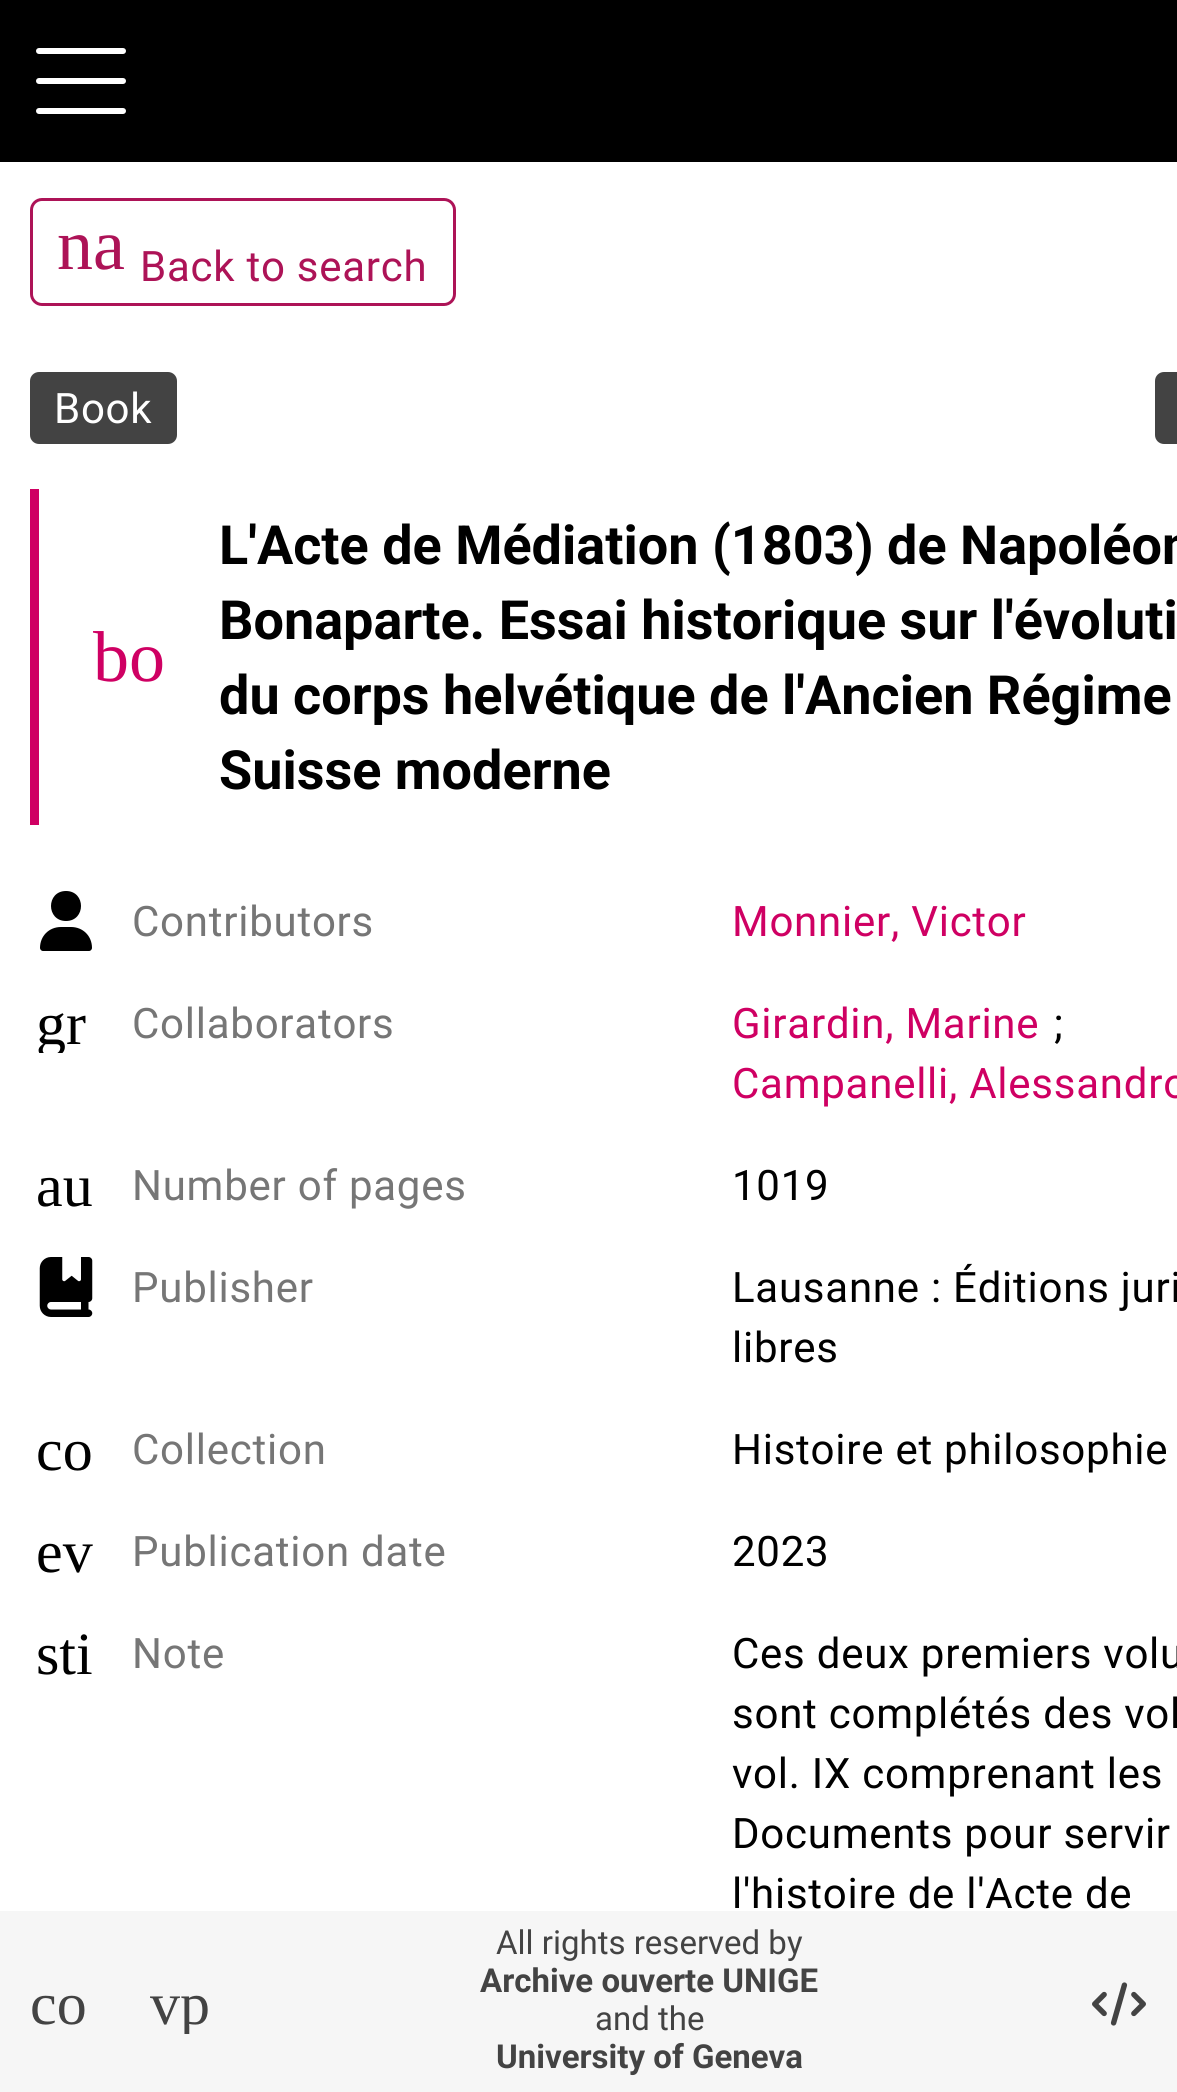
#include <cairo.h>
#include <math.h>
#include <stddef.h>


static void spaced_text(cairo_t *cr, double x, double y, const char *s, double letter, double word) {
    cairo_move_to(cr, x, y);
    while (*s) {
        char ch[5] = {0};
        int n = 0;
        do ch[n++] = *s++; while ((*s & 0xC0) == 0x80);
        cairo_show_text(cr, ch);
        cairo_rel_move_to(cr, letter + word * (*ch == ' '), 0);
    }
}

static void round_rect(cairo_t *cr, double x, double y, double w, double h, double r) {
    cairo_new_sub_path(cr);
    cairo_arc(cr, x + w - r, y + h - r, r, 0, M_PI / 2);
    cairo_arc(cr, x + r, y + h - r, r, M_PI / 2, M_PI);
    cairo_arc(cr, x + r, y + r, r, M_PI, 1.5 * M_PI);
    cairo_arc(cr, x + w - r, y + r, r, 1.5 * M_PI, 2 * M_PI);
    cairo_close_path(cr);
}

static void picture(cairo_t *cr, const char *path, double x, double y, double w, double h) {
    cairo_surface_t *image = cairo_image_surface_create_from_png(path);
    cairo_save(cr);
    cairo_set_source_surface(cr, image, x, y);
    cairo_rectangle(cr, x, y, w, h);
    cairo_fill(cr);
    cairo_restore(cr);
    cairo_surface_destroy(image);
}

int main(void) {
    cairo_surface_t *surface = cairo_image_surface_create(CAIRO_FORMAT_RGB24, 1177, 2092);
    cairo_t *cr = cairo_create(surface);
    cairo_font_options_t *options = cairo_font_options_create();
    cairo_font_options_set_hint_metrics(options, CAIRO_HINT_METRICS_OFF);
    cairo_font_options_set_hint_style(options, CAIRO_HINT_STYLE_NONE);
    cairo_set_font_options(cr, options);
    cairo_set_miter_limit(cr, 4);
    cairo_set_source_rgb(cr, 1, 1, 1);
    cairo_paint(cr);
    cairo_set_source_rgb(cr, 0, 0, 0);
    cairo_rectangle(cr, 0, 0, 1177, 162);
    cairo_fill(cr);
    cairo_set_source_rgb(cr, 1, 1, 1);
    round_rect(cr, 36, 48, 90, 6, 3);
    cairo_fill(cr);
    round_rect(cr, 36, 78, 90, 6, 3);
    cairo_fill(cr);
    round_rect(cr, 36, 108, 90, 6, 3);
    cairo_fill(cr);
    round_rect(cr, 31.5, 199.5, 423, 105, 10.5);
    cairo_set_source_rgb(cr, 0.678, 0.078, 0.341);
    cairo_set_line_width(cr, 3);
    cairo_stroke(cr);
    cairo_set_source_rgb(cr, 1, 1, 1);
    round_rect(cr, 33, 201, 420, 102, 12);
    cairo_fill(cr);
    cairo_select_font_face(cr, "Liberation Serif", CAIRO_FONT_SLANT_NORMAL, CAIRO_FONT_WEIGHT_NORMAL);
    cairo_set_font_size(cr, 72);
    cairo_set_source_rgb(cr, 0.678, 0.078, 0.341);
    cairo_move_to(cr, 57, 269);
    cairo_show_text(cr, "na");
    cairo_select_font_face(cr, "Roboto", CAIRO_FONT_SLANT_NORMAL, CAIRO_FONT_WEIGHT_NORMAL);
    cairo_set_font_size(cr, 42);
    spaced_text(cr, 140, 281, "Back to search", 0.75, 0);
    cairo_set_source_rgb(cr, 0.263, 0.263, 0.263);
    round_rect(cr, 30, 372, 147, 72, 9);
    cairo_fill(cr);
    cairo_set_source_rgb(cr, 1, 1, 1);
    spaced_text(cr, 54, 423, "Book", 0.75, 0);
    cairo_set_source_rgb(cr, 0.263, 0.263, 0.263);
    cairo_new_path(cr);
    cairo_move_to(cr, 1164, 372);
    cairo_line_to(cr, 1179, 372);
    cairo_line_to(cr, 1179, 444);
    cairo_line_to(cr, 1164, 444);
    cairo_curve_to(cr, 1159, 444, 1155, 440, 1155, 435);
    cairo_line_to(cr, 1155, 381);
    cairo_curve_to(cr, 1155, 376, 1159, 372, 1164, 372);
    cairo_close_path(cr);
    cairo_fill(cr);
    cairo_set_source_rgb(cr, 0.812, 0, 0.388);
    cairo_rectangle(cr, 30, 489, 9, 336);
    cairo_fill(cr);
    cairo_select_font_face(cr, "Liberation Serif", CAIRO_FONT_SLANT_NORMAL, CAIRO_FONT_WEIGHT_NORMAL);
    cairo_set_font_size(cr, 72);
    cairo_move_to(cr, 93, 681);
    cairo_show_text(cr, "bo");
    cairo_select_font_face(cr, "Roboto", CAIRO_FONT_SLANT_NORMAL, CAIRO_FONT_WEIGHT_BOLD);
    cairo_set_font_size(cr, 54);
    cairo_set_source_rgb(cr, 0, 0, 0);
    cairo_move_to(cr, 219, 564);
    cairo_show_text(cr, "L'Acte de Médiation (1803) de Napoléon");
    cairo_move_to(cr, 219, 639);
    cairo_show_text(cr, "Bonaparte. Essai historique sur l'évoluti");
    cairo_move_to(cr, 219, 714);
    cairo_show_text(cr, "du corps helvétique de l'Ancien Régime");
    cairo_move_to(cr, 219, 789);
    cairo_show_text(cr, "Suisse moderne");
    cairo_new_path(cr);
    cairo_move_to(cr, 66, 921);
    cairo_curve_to(cr, 86, 921, 86, 891, 66, 891);
    cairo_curve_to(cr, 46, 891, 46, 921, 66, 921);
    cairo_close_path(cr);
    cairo_move_to(cr, 61, 927);
    cairo_curve_to(cr, 49, 927, 40, 936, 40, 948);
    cairo_curve_to(cr, 40, 949, 41, 951, 43, 951);
    cairo_line_to(cr, 89, 951);
    cairo_curve_to(cr, 91, 951, 92, 949, 92, 948);
    cairo_curve_to(cr, 92, 936, 83, 927, 71, 927);
    cairo_close_path(cr);
    cairo_fill(cr);
    cairo_select_font_face(cr, "Roboto", CAIRO_FONT_SLANT_NORMAL, CAIRO_FONT_WEIGHT_NORMAL);
    cairo_set_font_size(cr, 42);
    cairo_set_source_rgb(cr, 0.463, 0.463, 0.463);
    spaced_text(cr, 132, 936, "Contributors", 0.75, 0);
    cairo_set_source_rgb(cr, 0.812, 0, 0.388);
    spaced_text(cr, 732, 936, "Monnier, Victor", 0.75, 0);
    cairo_save(cr);
    cairo_rectangle(cr, 36, 993, 60, 60);
    cairo_clip(cr);
    cairo_select_font_face(cr, "Liberation Serif", CAIRO_FONT_SLANT_NORMAL, CAIRO_FONT_WEIGHT_NORMAL);
    cairo_set_font_size(cr, 60);
    cairo_set_source_rgb(cr, 0, 0, 0);
    cairo_move_to(cr, 36, 1044);
    cairo_show_text(cr, "gr");
    cairo_restore(cr);
    cairo_set_source_rgb(cr, 0.463, 0.463, 0.463);
    spaced_text(cr, 132, 1038, "Collaborators", 0.75, 0);
    cairo_set_source_rgb(cr, 0.812, 0, 0.388);
    spaced_text(cr, 732, 1038, "Girardin, Marine", 0.75, 0);
    cairo_set_source_rgb(cr, 0, 0, 0);
    spaced_text(cr, 1054, 1038, ";", 0.75, 0);
    cairo_set_source_rgb(cr, 0.812, 0, 0.388);
    spaced_text(cr, 732, 1098, "Campanelli, Alessandro", 0.75, 0);
    cairo_select_font_face(cr, "Liberation Serif", CAIRO_FONT_SLANT_NORMAL, CAIRO_FONT_WEIGHT_NORMAL);
    cairo_set_font_size(cr, 60);
    cairo_set_source_rgb(cr, 0, 0, 0);
    cairo_move_to(cr, 36, 1206);
    cairo_show_text(cr, "au");
    cairo_select_font_face(cr, "Roboto", CAIRO_FONT_SLANT_NORMAL, CAIRO_FONT_WEIGHT_NORMAL);
    cairo_set_font_size(cr, 42);
    cairo_set_source_rgb(cr, 0.463, 0.463, 0.463);
    spaced_text(cr, 132, 1200, "Number of pages", 0.75, 0);
    cairo_set_source_rgb(cr, 0, 0, 0);
    spaced_text(cr, 732, 1200, "1019", 0.75, 0);
    picture(cr, "img1.png", 39, 1257, 54, 60);
    cairo_set_source_rgb(cr, 0.463, 0.463, 0.463);
    spaced_text(cr, 132, 1302, "Publisher", 0.75, 0);
    cairo_set_source_rgb(cr, 0, 0, 0);
    spaced_text(cr, 732, 1302, "Lausanne : Éditions juri", 0.75, 0);
    spaced_text(cr, 732, 1362, "libres", 0.75, 0);
    cairo_select_font_face(cr, "Liberation Serif", CAIRO_FONT_SLANT_NORMAL, CAIRO_FONT_WEIGHT_NORMAL);
    cairo_set_font_size(cr, 60);
    cairo_move_to(cr, 36, 1470);
    cairo_show_text(cr, "co");
    cairo_select_font_face(cr, "Roboto", CAIRO_FONT_SLANT_NORMAL, CAIRO_FONT_WEIGHT_NORMAL);
    cairo_set_font_size(cr, 42);
    cairo_set_source_rgb(cr, 0.463, 0.463, 0.463);
    spaced_text(cr, 132, 1464, "Collection", 0.75, 0);
    cairo_set_source_rgb(cr, 0, 0, 0);
    spaced_text(cr, 732, 1464, "Histoire et philosophie", 0.75, 0);
    cairo_select_font_face(cr, "Liberation Serif", CAIRO_FONT_SLANT_NORMAL, CAIRO_FONT_WEIGHT_NORMAL);
    cairo_set_font_size(cr, 60);
    cairo_move_to(cr, 36, 1572);
    cairo_show_text(cr, "ev");
    cairo_select_font_face(cr, "Roboto", CAIRO_FONT_SLANT_NORMAL, CAIRO_FONT_WEIGHT_NORMAL);
    cairo_set_font_size(cr, 42);
    cairo_set_source_rgb(cr, 0.463, 0.463, 0.463);
    spaced_text(cr, 132, 1566, "Publication date", 0.75, 0);
    cairo_set_source_rgb(cr, 0, 0, 0);
    spaced_text(cr, 732, 1566, "2023", 0.75, 0);
    cairo_select_font_face(cr, "Liberation Serif", CAIRO_FONT_SLANT_NORMAL, CAIRO_FONT_WEIGHT_NORMAL);
    cairo_set_font_size(cr, 60);
    cairo_move_to(cr, 36, 1674);
    cairo_show_text(cr, "sti");
    cairo_select_font_face(cr, "Roboto", CAIRO_FONT_SLANT_NORMAL, CAIRO_FONT_WEIGHT_NORMAL);
    cairo_set_font_size(cr, 42);
    cairo_set_source_rgb(cr, 0.463, 0.463, 0.463);
    spaced_text(cr, 132, 1668, "Note", 0.75, 0);
    cairo_set_source_rgb(cr, 0, 0, 0);
    spaced_text(cr, 732, 1668, "Ces deux premiers volu", 0.75, 0);
    spaced_text(cr, 732, 1728, "sont complétés des vol", 0.75, 0);
    spaced_text(cr, 732, 1788, "vol. IX comprenant les", 0.75, 0);
    spaced_text(cr, 732, 1848, "Documents pour servir", 0.75, 0);
    spaced_text(cr, 732, 1908, "l'histoire de l'Acte de", 0.75, 0);
    cairo_set_source_rgb(cr, 0.961, 0.961, 0.961);
    cairo_rectangle(cr, 0, 1911, 1177, 181);
    cairo_fill(cr);
    cairo_select_font_face(cr, "Liberation Serif", CAIRO_FONT_SLANT_NORMAL, CAIRO_FONT_WEIGHT_NORMAL);
    cairo_set_font_size(cr, 60);
    cairo_set_source_rgb(cr, 0.263, 0.263, 0.263);
    cairo_move_to(cr, 30, 2024);
    cairo_show_text(cr, "co");
    cairo_save(cr);
    cairo_rectangle(cr, 150, 1974, 60, 60);
    cairo_clip(cr);
    cairo_move_to(cr, 150, 2024);
    cairo_show_text(cr, "vp");
    cairo_restore(cr);
    cairo_select_font_face(cr, "Roboto", CAIRO_FONT_SLANT_NORMAL, CAIRO_FONT_WEIGHT_NORMAL);
    cairo_set_font_size(cr, 33);
    cairo_move_to(cr, 496, 1954);
    cairo_show_text(cr, "All rights reserved by");
    cairo_select_font_face(cr, "Roboto", CAIRO_FONT_SLANT_NORMAL, CAIRO_FONT_WEIGHT_BOLD);
    cairo_move_to(cr, 480, 1992);
    cairo_show_text(cr, "Archive ouverte UNIGE");
    cairo_select_font_face(cr, "Roboto", CAIRO_FONT_SLANT_NORMAL, CAIRO_FONT_WEIGHT_NORMAL);
    cairo_move_to(cr, 595, 2030);
    cairo_show_text(cr, "and the");
    cairo_select_font_face(cr, "Roboto", CAIRO_FONT_SLANT_NORMAL, CAIRO_FONT_WEIGHT_BOLD);
    cairo_move_to(cr, 496, 2068);
    cairo_show_text(cr, "University of Geneva");
    picture(cr, "img2.png", 1092, 1982, 54, 44);
    cairo_surface_write_to_png(surface, "page.png");
    cairo_font_options_destroy(options);
    cairo_destroy(cr);
    cairo_surface_destroy(surface);
    return 0;
}
